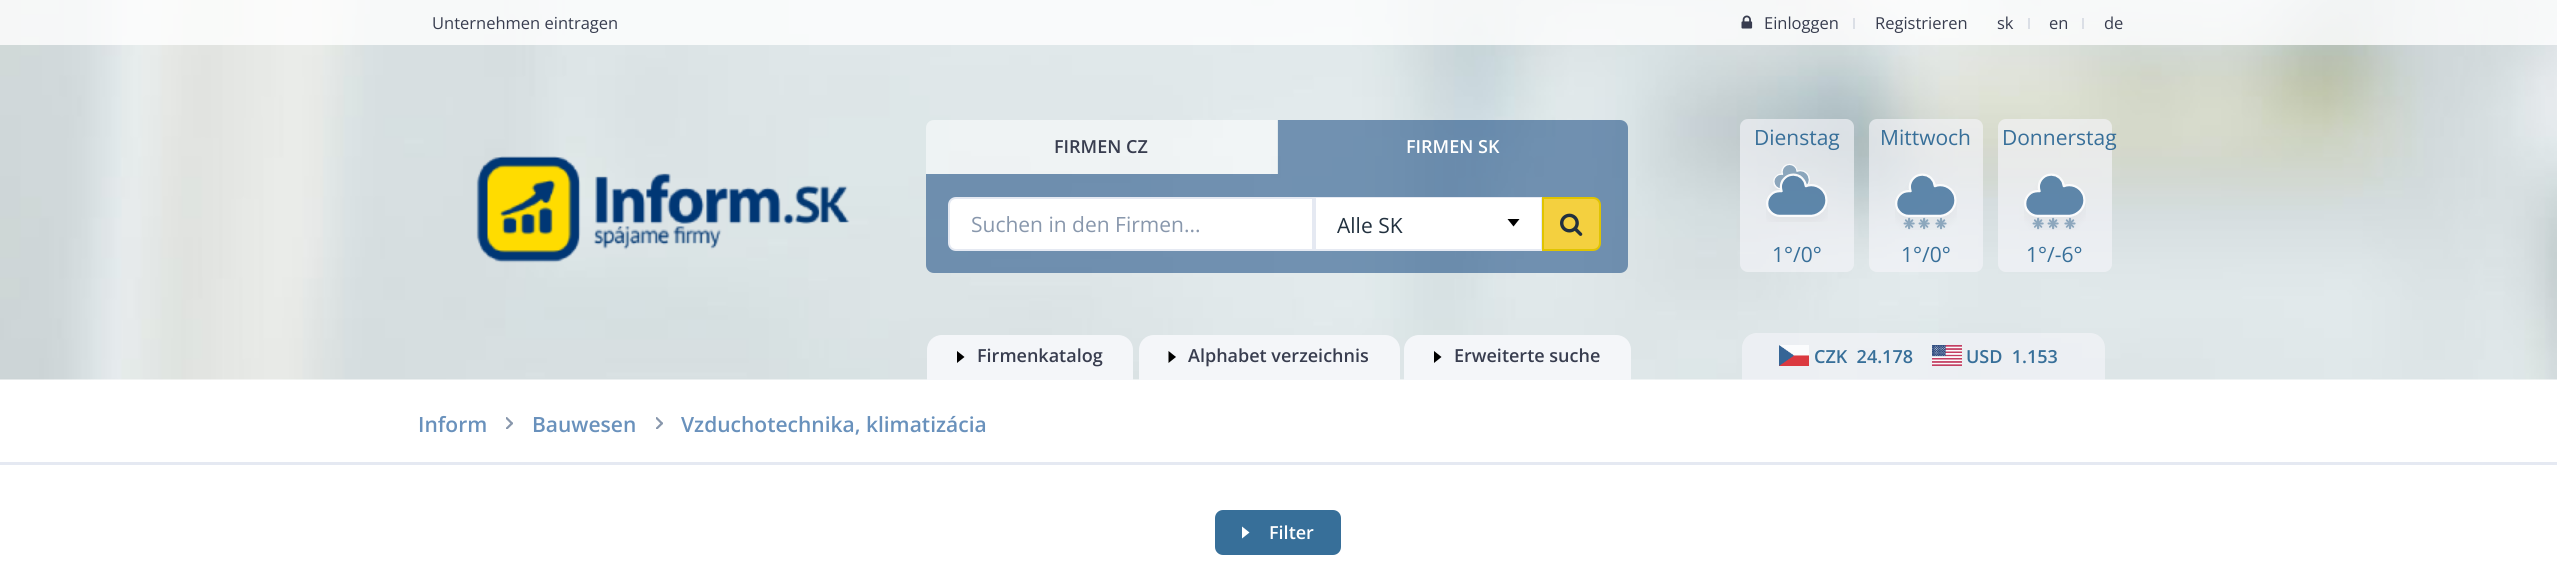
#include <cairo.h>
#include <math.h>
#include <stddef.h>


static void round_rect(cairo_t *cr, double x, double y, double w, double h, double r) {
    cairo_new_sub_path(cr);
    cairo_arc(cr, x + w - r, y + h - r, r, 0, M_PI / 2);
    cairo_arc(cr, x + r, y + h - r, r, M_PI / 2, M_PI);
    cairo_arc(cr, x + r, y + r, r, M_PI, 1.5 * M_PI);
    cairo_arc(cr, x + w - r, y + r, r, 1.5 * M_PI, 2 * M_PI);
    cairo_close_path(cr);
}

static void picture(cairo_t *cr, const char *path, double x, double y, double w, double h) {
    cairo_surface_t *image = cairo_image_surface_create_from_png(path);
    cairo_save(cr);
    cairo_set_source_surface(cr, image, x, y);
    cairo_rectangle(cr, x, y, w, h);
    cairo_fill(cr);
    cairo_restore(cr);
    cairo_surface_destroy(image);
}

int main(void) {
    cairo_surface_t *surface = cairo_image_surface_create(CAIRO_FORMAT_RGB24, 2557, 570);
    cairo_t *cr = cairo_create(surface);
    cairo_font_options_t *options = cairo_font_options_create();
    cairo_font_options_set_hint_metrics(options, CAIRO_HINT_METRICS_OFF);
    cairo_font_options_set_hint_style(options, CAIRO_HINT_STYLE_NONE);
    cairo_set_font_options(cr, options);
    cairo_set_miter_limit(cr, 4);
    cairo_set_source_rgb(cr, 1, 1, 1);
    cairo_paint(cr);
    picture(cr, "img1.png", 0, 0, 2557, 380);
    cairo_set_source_rgba(cr, 1, 1, 1, 0.8);
    cairo_rectangle(cr, 0, 0, 2557, 45);
    cairo_fill(cr);
    cairo_select_font_face(cr, "Open Sans", CAIRO_FONT_SLANT_NORMAL, CAIRO_FONT_WEIGHT_NORMAL);
    cairo_set_font_size(cr, 16.5);
    cairo_set_source_rgb(cr, 0.22, 0.239, 0.31);
    cairo_move_to(cr, 432, 29);
    cairo_show_text(cr, "Unternehmen eintragen");
    picture(cr, "img2.png", 1741, 15, 12, 14);
    cairo_move_to(cr, 1764, 29);
    cairo_show_text(cr, "Einloggen");
    cairo_set_source_rgb(cr, 0.859, 0.875, 0.902);
    cairo_rectangle(cr, 1853, 18, 2, 11);
    cairo_fill(cr);
    cairo_set_source_rgb(cr, 0.22, 0.239, 0.31);
    cairo_move_to(cr, 1875, 29);
    cairo_show_text(cr, "Registrieren");
    cairo_move_to(cr, 1997, 29);
    cairo_show_text(cr, "sk");
    cairo_set_source_rgb(cr, 0.859, 0.875, 0.902);
    cairo_rectangle(cr, 2028, 18, 2, 11);
    cairo_fill(cr);
    cairo_set_source_rgb(cr, 0.22, 0.239, 0.31);
    cairo_move_to(cr, 2049, 29);
    cairo_show_text(cr, "en");
    cairo_set_source_rgb(cr, 0.859, 0.875, 0.902);
    cairo_rectangle(cr, 2082, 18, 2, 11);
    cairo_fill(cr);
    cairo_set_source_rgb(cr, 0.22, 0.239, 0.31);
    cairo_move_to(cr, 2104, 29);
    cairo_show_text(cr, "de");
    picture(cr, "img3.png", 476, 156, 374, 107);
    cairo_set_source_rgba(cr, 1, 1, 1, 0.5);
    cairo_new_path(cr);
    cairo_move_to(cr, 934, 120);
    cairo_line_to(cr, 1277, 120);
    cairo_line_to(cr, 1277, 174);
    cairo_line_to(cr, 926, 174);
    cairo_line_to(cr, 926, 128);
    cairo_curve_to(cr, 926, 123.5, 929.5, 120, 934, 120);
    cairo_close_path(cr);
    cairo_fill(cr);
    cairo_select_font_face(cr, "Open Sans SemiBold", CAIRO_FONT_SLANT_NORMAL, CAIRO_FONT_WEIGHT_NORMAL);
    cairo_set_font_size(cr, 18);
    cairo_set_source_rgb(cr, 0.22, 0.239, 0.31);
    cairo_move_to(cr, 1054, 153);
    cairo_show_text(cr, "FIRMEN CZ");
    cairo_set_source_rgba(cr, 0, 0.22, 0.463, 0.5);
    cairo_new_path(cr);
    cairo_move_to(cr, 1278, 120);
    cairo_line_to(cr, 1620, 120);
    cairo_curve_to(cr, 1624.5, 120, 1628, 123.5, 1628, 128);
    cairo_line_to(cr, 1628, 174);
    cairo_line_to(cr, 1278, 174);
    cairo_close_path(cr);
    cairo_fill(cr);
    cairo_set_source_rgb(cr, 1, 1, 1);
    cairo_move_to(cr, 1406, 153);
    cairo_show_text(cr, "FIRMEN SK");
    cairo_set_source_rgba(cr, 0, 0.22, 0.463, 0.5);
    cairo_new_path(cr);
    cairo_move_to(cr, 926, 174);
    cairo_line_to(cr, 1628, 174);
    cairo_line_to(cr, 1628, 265);
    cairo_curve_to(cr, 1628, 269.5, 1624.5, 273, 1620, 273);
    cairo_line_to(cr, 934, 273);
    cairo_curve_to(cr, 929.5, 273, 926, 269.5, 926, 265);
    cairo_close_path(cr);
    cairo_fill(cr);
    cairo_set_source_rgb(cr, 1, 1, 1);
    cairo_new_path(cr);
    cairo_move_to(cr, 956, 198);
    cairo_line_to(cr, 1313, 198);
    cairo_line_to(cr, 1313, 250);
    cairo_line_to(cr, 956, 250);
    cairo_curve_to(cr, 952, 250, 949, 247, 949, 243);
    cairo_line_to(cr, 949, 205);
    cairo_curve_to(cr, 949, 201, 952, 198, 956, 198);
    cairo_close_path(cr);
    cairo_fill_preserve(cr);
    cairo_set_source_rgb(cr, 0.898, 0.914, 0.949);
    cairo_stroke(cr);
    cairo_select_font_face(cr, "Open Sans", CAIRO_FONT_SLANT_NORMAL, CAIRO_FONT_WEIGHT_NORMAL);
    cairo_set_font_size(cr, 21);
    cairo_set_source_rgb(cr, 0.533, 0.592, 0.675);
    cairo_move_to(cr, 971, 232);
    cairo_show_text(cr, "Suchen in den Firmen...");
    cairo_rectangle(cr, 1315, 198, 226, 52);
    cairo_set_source_rgb(cr, 0.898, 0.914, 0.949);
    cairo_stroke(cr);
    cairo_set_source_rgb(cr, 1, 1, 1);
    cairo_rectangle(cr, 1316, 198, 225, 51);
    cairo_fill(cr);
    cairo_set_source_rgb(cr, 0.133, 0.192, 0.247);
    cairo_move_to(cr, 1337, 233);
    cairo_show_text(cr, "Alle SK");
    cairo_set_source_rgb(cr, 0, 0, 0);
    cairo_new_path(cr);
    cairo_move_to(cr, 1507.5, 219);
    cairo_line_to(cr, 1519.5, 219);
    cairo_line_to(cr, 1513.5, 226.5);
    cairo_close_path(cr);
    cairo_fill(cr);
    cairo_set_source_rgb(cr, 0.957, 0.816, 0.247);
    cairo_new_path(cr);
    cairo_move_to(cr, 1543, 198);
    cairo_line_to(cr, 1593, 198);
    cairo_curve_to(cr, 1597, 198, 1600, 201, 1600, 205);
    cairo_line_to(cr, 1600, 243);
    cairo_curve_to(cr, 1600, 247, 1597, 250, 1593, 250);
    cairo_line_to(cr, 1543, 250);
    cairo_close_path(cr);
    cairo_fill_preserve(cr);
    cairo_set_source_rgb(cr, 0.878, 0.769, 0);
    cairo_stroke(cr);
    picture(cr, "img4.png", 1560, 213, 23, 23);
    cairo_set_source_rgba(cr, 0.957, 0.961, 0.976, 0.65);
    round_rect(cr, 1740, 119, 114, 153, 8);
    cairo_fill(cr);
    cairo_set_source_rgb(cr, 0.216, 0.435, 0.6);
    cairo_move_to(cr, 1754, 145);
    cairo_show_text(cr, "Dienstag");
    picture(cr, "img5.png", 1766, 163, 62, 59);
    cairo_move_to(cr, 1772, 262);
    cairo_show_text(cr, "1°/0°");
    cairo_set_source_rgba(cr, 0.957, 0.961, 0.976, 0.65);
    round_rect(cr, 1869, 119, 114, 153, 8);
    cairo_fill(cr);
    cairo_set_source_rgb(cr, 0.216, 0.435, 0.6);
    cairo_move_to(cr, 1880, 145);
    cairo_show_text(cr, "Mittwoch");
    picture(cr, "img6.png", 1895, 173, 62, 57);
    cairo_move_to(cr, 1901, 262);
    cairo_show_text(cr, "1°/0°");
    cairo_set_source_rgba(cr, 0.957, 0.961, 0.976, 0.65);
    round_rect(cr, 1998, 119, 114, 153, 8);
    cairo_fill(cr);
    cairo_set_source_rgb(cr, 0.216, 0.435, 0.6);
    cairo_move_to(cr, 2002, 145);
    cairo_show_text(cr, "Donnerstag");
    picture(cr, "img7.png", 2024, 173, 62, 57);
    cairo_move_to(cr, 2026, 262);
    cairo_show_text(cr, "1°/-6°");
    cairo_set_source_rgb(cr, 0.957, 0.961, 0.976);
    cairo_new_path(cr);
    cairo_move_to(cr, 942, 335);
    cairo_line_to(cr, 1118, 335);
    cairo_curve_to(cr, 1126.5, 335, 1133, 341.5, 1133, 350);
    cairo_line_to(cr, 1133, 380);
    cairo_line_to(cr, 927, 380);
    cairo_line_to(cr, 927, 350);
    cairo_curve_to(cr, 927, 341.5, 933.5, 335, 942, 335);
    cairo_close_path(cr);
    cairo_fill(cr);
    cairo_set_source_rgb(cr, 0, 0, 0);
    cairo_new_path(cr);
    cairo_move_to(cr, 957, 363);
    cairo_line_to(cr, 957, 351);
    cairo_line_to(cr, 964.5, 357);
    cairo_close_path(cr);
    cairo_fill(cr);
    cairo_select_font_face(cr, "Open Sans SemiBold", CAIRO_FONT_SLANT_NORMAL, CAIRO_FONT_WEIGHT_NORMAL);
    cairo_set_font_size(cr, 18);
    cairo_set_source_rgb(cr, 0.22, 0.239, 0.31);
    cairo_move_to(cr, 977, 362);
    cairo_show_text(cr, "Firmenkatalog");
    cairo_set_source_rgb(cr, 0.957, 0.961, 0.976);
    cairo_new_path(cr);
    cairo_move_to(cr, 1154, 335);
    cairo_line_to(cr, 1385, 335);
    cairo_curve_to(cr, 1393.5, 335, 1400, 341.5, 1400, 350);
    cairo_line_to(cr, 1400, 380);
    cairo_line_to(cr, 1139, 380);
    cairo_line_to(cr, 1139, 350);
    cairo_curve_to(cr, 1139, 341.5, 1145.5, 335, 1154, 335);
    cairo_close_path(cr);
    cairo_fill(cr);
    cairo_set_source_rgb(cr, 0, 0, 0);
    cairo_new_path(cr);
    cairo_move_to(cr, 1168.5, 363);
    cairo_line_to(cr, 1168.5, 351);
    cairo_line_to(cr, 1176, 357);
    cairo_close_path(cr);
    cairo_fill(cr);
    cairo_set_source_rgb(cr, 0.22, 0.239, 0.31);
    cairo_move_to(cr, 1188, 362);
    cairo_show_text(cr, "Alphabet verzeichnis");
    cairo_set_source_rgb(cr, 0.957, 0.961, 0.976);
    cairo_new_path(cr);
    cairo_move_to(cr, 1419, 335);
    cairo_line_to(cr, 1616, 335);
    cairo_curve_to(cr, 1624.5, 335, 1631, 341.5, 1631, 350);
    cairo_line_to(cr, 1631, 380);
    cairo_line_to(cr, 1404, 380);
    cairo_line_to(cr, 1404, 350);
    cairo_curve_to(cr, 1404, 341.5, 1410.5, 335, 1419, 335);
    cairo_close_path(cr);
    cairo_fill(cr);
    cairo_set_source_rgb(cr, 0, 0, 0);
    cairo_new_path(cr);
    cairo_move_to(cr, 1434, 363);
    cairo_line_to(cr, 1434, 351);
    cairo_line_to(cr, 1441.5, 357);
    cairo_close_path(cr);
    cairo_fill(cr);
    cairo_set_source_rgb(cr, 0.22, 0.239, 0.31);
    cairo_move_to(cr, 1454, 362);
    cairo_show_text(cr, "Erweiterte suche");
    cairo_set_source_rgba(cr, 0.957, 0.961, 0.976, 0.65);
    cairo_new_path(cr);
    cairo_move_to(cr, 1757, 333);
    cairo_line_to(cr, 2090, 333);
    cairo_curve_to(cr, 2098.5, 333, 2105, 339.5, 2105, 348);
    cairo_line_to(cr, 2105, 380);
    cairo_line_to(cr, 1742, 380);
    cairo_line_to(cr, 1742, 348);
    cairo_curve_to(cr, 1742, 339.5, 1748.5, 333, 1757, 333);
    cairo_close_path(cr);
    cairo_fill(cr);
    picture(cr, "img8.png", 1779, 345, 30, 21);
    cairo_set_source_rgb(cr, 0.216, 0.435, 0.6);
    cairo_move_to(cr, 1814, 363);
    cairo_show_text(cr, "CZK  24.178");
    picture(cr, "img9.png", 1932, 345, 30, 21);
    cairo_move_to(cr, 1966, 363);
    cairo_show_text(cr, "USD  1.153");
    cairo_set_font_size(cr, 21);
    cairo_set_source_rgb(cr, 0.412, 0.569, 0.737);
    cairo_move_to(cr, 418, 432);
    cairo_show_text(cr, "Inform");
    picture(cr, "img10.png", 506, 417, 7, 12);
    cairo_move_to(cr, 532, 432);
    cairo_show_text(cr, "Bauwesen");
    picture(cr, "img10.png", 656, 417, 7, 12);
    cairo_move_to(cr, 681, 432);
    cairo_show_text(cr, "Vzduchotechnika, klimatizácia");
    cairo_set_source_rgb(cr, 0.898, 0.914, 0.949);
    cairo_rectangle(cr, 0, 462, 2557, 3);
    cairo_fill(cr);
    cairo_set_source_rgb(cr, 0.216, 0.435, 0.6);
    round_rect(cr, 1215, 510, 126, 45, 8);
    cairo_fill(cr);
    cairo_set_source_rgb(cr, 1, 1, 1);
    cairo_new_path(cr);
    cairo_move_to(cr, 1242, 538.5);
    cairo_line_to(cr, 1242, 526.5);
    cairo_line_to(cr, 1249.5, 532.5);
    cairo_close_path(cr);
    cairo_fill(cr);
    cairo_set_font_size(cr, 18);
    cairo_move_to(cr, 1269, 539);
    cairo_show_text(cr, "Filter");
    cairo_surface_write_to_png(surface, "page.png");
    cairo_font_options_destroy(options);
    cairo_destroy(cr);
    cairo_surface_destroy(surface);
    return 0;
}
